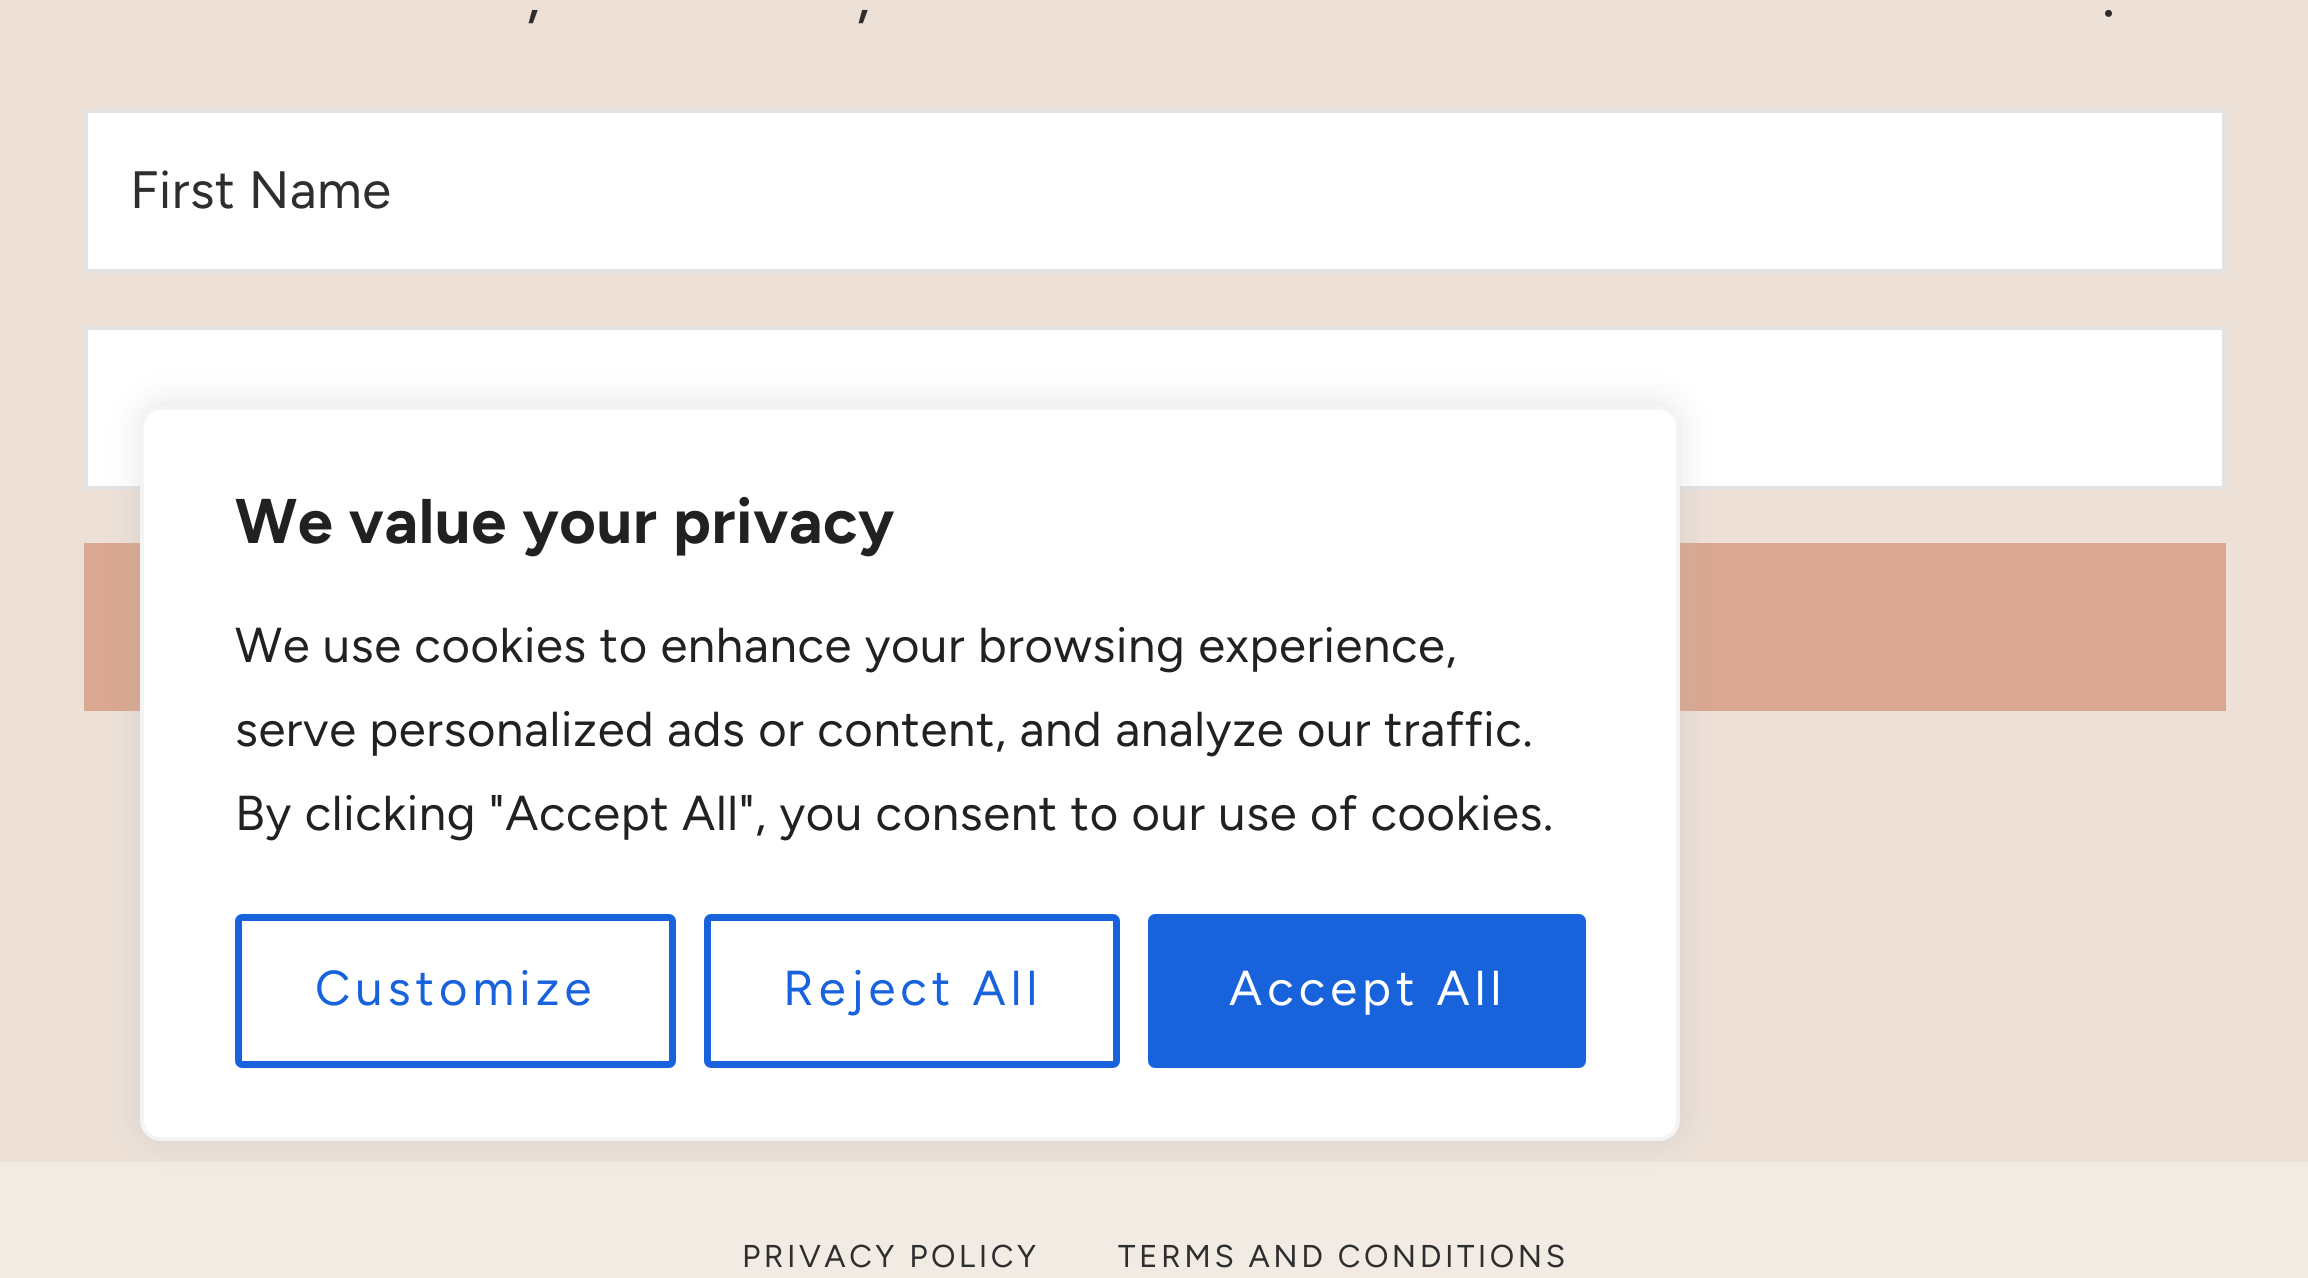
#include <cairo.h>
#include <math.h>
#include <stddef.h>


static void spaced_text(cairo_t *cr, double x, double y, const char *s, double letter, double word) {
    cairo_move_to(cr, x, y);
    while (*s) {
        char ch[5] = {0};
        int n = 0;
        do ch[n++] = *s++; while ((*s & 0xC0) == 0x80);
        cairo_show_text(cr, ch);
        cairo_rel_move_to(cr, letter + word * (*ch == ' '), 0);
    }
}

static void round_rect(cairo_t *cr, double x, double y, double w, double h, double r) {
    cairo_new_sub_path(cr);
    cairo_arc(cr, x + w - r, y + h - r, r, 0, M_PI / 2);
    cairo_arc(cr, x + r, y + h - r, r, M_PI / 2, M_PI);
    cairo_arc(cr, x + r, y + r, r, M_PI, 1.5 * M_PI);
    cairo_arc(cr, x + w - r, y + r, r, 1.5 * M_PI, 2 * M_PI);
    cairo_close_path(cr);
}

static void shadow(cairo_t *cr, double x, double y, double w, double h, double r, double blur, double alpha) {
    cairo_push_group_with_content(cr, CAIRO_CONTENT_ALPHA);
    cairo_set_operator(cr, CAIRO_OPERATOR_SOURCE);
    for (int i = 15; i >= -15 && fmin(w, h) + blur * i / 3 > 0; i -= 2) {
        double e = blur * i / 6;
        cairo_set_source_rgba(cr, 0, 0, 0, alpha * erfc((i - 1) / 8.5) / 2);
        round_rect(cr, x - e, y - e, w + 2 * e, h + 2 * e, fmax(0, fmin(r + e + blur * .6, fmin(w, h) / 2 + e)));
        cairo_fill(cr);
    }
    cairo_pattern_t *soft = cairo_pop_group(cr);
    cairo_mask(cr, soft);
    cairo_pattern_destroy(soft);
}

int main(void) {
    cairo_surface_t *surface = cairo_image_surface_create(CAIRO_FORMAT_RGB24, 2308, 1278);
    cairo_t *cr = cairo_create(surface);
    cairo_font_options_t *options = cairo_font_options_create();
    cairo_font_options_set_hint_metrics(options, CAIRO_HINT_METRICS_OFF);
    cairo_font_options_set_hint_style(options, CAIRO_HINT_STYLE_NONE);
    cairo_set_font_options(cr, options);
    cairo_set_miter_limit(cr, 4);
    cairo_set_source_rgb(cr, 0.945, 0.918, 0.894);
    cairo_paint(cr);
    cairo_set_source_rgb(cr, 0.922, 0.878, 0.843);
    cairo_rectangle(cr, 0, 0, 2308, 1162);
    cairo_fill(cr);
    cairo_select_font_face(cr, "Figtree", CAIRO_FONT_SLANT_NORMAL, CAIRO_FONT_WEIGHT_NORMAL);
    cairo_set_font_size(cr, 63);
    cairo_set_source_rgb(cr, 0.18, 0.18, 0.18);
    spaced_text(cr, 526, 16, ",", 0.63, 0);
    spaced_text(cr, 856, 16, ",", 0.63, 0);
    spaced_text(cr, 2102, 16, ".", 0.63, 0);
    cairo_set_source_rgb(cr, 1, 1, 1);
    cairo_rectangle(cr, 86, 111, 2138, 160);
    cairo_fill_preserve(cr);
    cairo_set_source_rgb(cr, 0.89, 0.89, 0.89);
    cairo_set_line_width(cr, 4);
    cairo_stroke(cr);
    cairo_set_font_size(cr, 52.5);
    cairo_set_source_rgb(cr, 0.18, 0.18, 0.18);
    spaced_text(cr, 130, 208, "First Name", 0.5, 0);
    cairo_set_source_rgb(cr, 1, 1, 1);
    cairo_rectangle(cr, 86, 328, 2138, 160);
    cairo_fill_preserve(cr);
    cairo_set_source_rgb(cr, 0.89, 0.89, 0.89);
    cairo_stroke(cr);
    cairo_set_source_rgb(cr, 0.855, 0.655, 0.565);
    cairo_rectangle(cr, 84, 543, 2142, 168);
    cairo_fill(cr);
    cairo_set_font_size(cr, 31.5);
    cairo_set_source_rgb(cr, 0.18, 0.18, 0.18);
    spaced_text(cr, 742, 1267, "PRIVACY POLICY", 3.5, 0);
    spaced_text(cr, 1118, 1267, "TERMS AND CONDITIONS", 3.5, 0);
    cairo_set_source_rgb(cr, 0.675, 0.671, 0.671);
    shadow(cr, 140, 403, 1540, 735, 21, 17.5, 0.3);
    cairo_set_source_rgb(cr, 1, 1, 1);
    round_rect(cr, 142, 408, 1536, 731, 19);
    cairo_fill_preserve(cr);
    cairo_set_source_rgb(cr, 0.957, 0.957, 0.957);
    cairo_stroke(cr);
    cairo_select_font_face(cr, "Figtree", CAIRO_FONT_SLANT_NORMAL, CAIRO_FONT_WEIGHT_BOLD);
    cairo_set_font_size(cr, 63);
    cairo_set_source_rgb(cr, 0.129, 0.129, 0.129);
    spaced_text(cr, 235, 543, "We value your privacy", 0.63, 0);
    cairo_select_font_face(cr, "Figtree", CAIRO_FONT_SLANT_NORMAL, CAIRO_FONT_WEIGHT_NORMAL);
    cairo_set_font_size(cr, 49);
    spaced_text(cr, 235, 662, "We use cookies to enhance your browsing experience,", 0.63, 0);
    spaced_text(cr, 235, 746, "serve personalized ads or content, and analyze our traffic.", 0.63, 0);
    spaced_text(cr, 235, 830, "By clicking \"Accept All\", you consent to our use of cookies.", 0.63, 0);
    round_rect(cr, 238.5, 917.5, 434, 147, 3.5);
    cairo_set_source_rgb(cr, 0.094, 0.388, 0.863);
    cairo_set_line_width(cr, 7);
    cairo_stroke(cr);
    spaced_text(cr, 315, 1005, "Customize", 5, 0);
    round_rect(cr, 707.5, 917.5, 409, 147, 3.5);
    cairo_stroke(cr);
    spaced_text(cr, 783, 1005, "Reject All", 5, 0);
    round_rect(cr, 1151.5, 917.5, 431, 147, 3.5);
    cairo_fill_preserve(cr);
    cairo_stroke(cr);
    cairo_set_source_rgb(cr, 1, 1, 1);
    spaced_text(cr, 1229, 1005, "Accept All", 5, 0);
    cairo_surface_write_to_png(surface, "page.png");
    cairo_font_options_destroy(options);
    cairo_destroy(cr);
    cairo_surface_destroy(surface);
    return 0;
}
